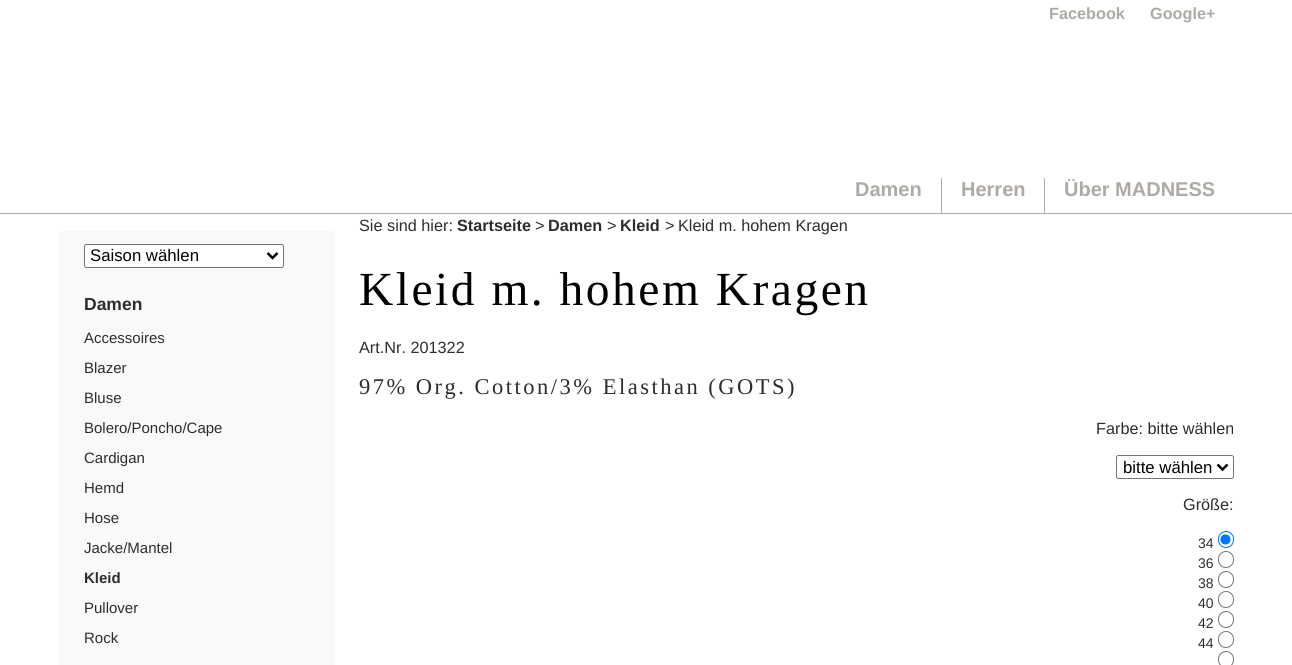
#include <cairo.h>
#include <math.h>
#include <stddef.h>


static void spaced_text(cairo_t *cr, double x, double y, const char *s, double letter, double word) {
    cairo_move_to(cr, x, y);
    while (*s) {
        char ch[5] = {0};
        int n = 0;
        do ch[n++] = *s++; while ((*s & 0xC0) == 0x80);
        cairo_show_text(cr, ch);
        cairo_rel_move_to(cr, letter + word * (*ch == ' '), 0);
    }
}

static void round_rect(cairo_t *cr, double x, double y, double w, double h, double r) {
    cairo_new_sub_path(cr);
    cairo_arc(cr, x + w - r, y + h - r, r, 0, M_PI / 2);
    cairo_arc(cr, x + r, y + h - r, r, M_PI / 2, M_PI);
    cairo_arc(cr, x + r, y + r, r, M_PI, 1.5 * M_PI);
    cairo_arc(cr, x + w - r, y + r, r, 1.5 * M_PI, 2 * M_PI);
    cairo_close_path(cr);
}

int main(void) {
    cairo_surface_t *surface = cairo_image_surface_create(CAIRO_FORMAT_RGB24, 1292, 665);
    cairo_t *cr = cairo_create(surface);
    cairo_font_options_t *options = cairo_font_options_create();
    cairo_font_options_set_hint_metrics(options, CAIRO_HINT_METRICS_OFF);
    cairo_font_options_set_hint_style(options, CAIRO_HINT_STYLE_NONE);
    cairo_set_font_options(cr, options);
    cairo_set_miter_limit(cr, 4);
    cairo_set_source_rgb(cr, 1, 1, 1);
    cairo_paint(cr);
    cairo_set_source_rgb(cr, 0.682, 0.667, 0.647);
    cairo_rectangle(cr, 0, 213, 1292, 1);
    cairo_fill(cr);
    cairo_select_font_face(cr, "Liberation Sans", CAIRO_FONT_SLANT_NORMAL, CAIRO_FONT_WEIGHT_BOLD);
    cairo_set_font_size(cr, 16.25);
    cairo_move_to(cr, 1049, 19);
    cairo_show_text(cr, "Facebook");
    cairo_move_to(cr, 1150, 19);
    cairo_show_text(cr, "Google+");
    cairo_rectangle(cr, 941, 178, 1, 35);
    cairo_fill(cr);
    cairo_set_font_size(cr, 20);
    cairo_move_to(cr, 855, 196);
    cairo_show_text(cr, "Damen");
    cairo_rectangle(cr, 1044, 178, 1, 35);
    cairo_fill(cr);
    cairo_move_to(cr, 961, 196);
    cairo_show_text(cr, "Herren");
    cairo_move_to(cr, 1064, 196);
    cairo_show_text(cr, "Über MADNESS");
    cairo_set_source_rgb(cr, 0.976, 0.976, 0.976);
    cairo_rectangle(cr, 59, 231, 275, 434);
    cairo_fill(cr);
    cairo_set_source_rgb(cr, 1, 1, 1);
    round_rect(cr, 84.5, 244.5, 199, 23, 2);
    cairo_fill_preserve(cr);
    cairo_set_source_rgb(cr, 0.463, 0.463, 0.463);
    cairo_set_line_width(cr, 1);
    cairo_stroke(cr);
    cairo_new_path(cr);
    cairo_move_to(cr, 267.5, 253);
    cairo_line_to(cr, 272.5, 258);
    cairo_line_to(cr, 277.5, 253);
    cairo_set_source_rgb(cr, 0, 0, 0);
    cairo_set_line_width(cr, 2.5);
    cairo_stroke(cr);
    cairo_select_font_face(cr, "Liberation Sans", CAIRO_FONT_SLANT_NORMAL, CAIRO_FONT_WEIGHT_NORMAL);
    cairo_set_font_size(cr, 16.75);
    cairo_move_to(cr, 90, 261);
    cairo_show_text(cr, "Saison wählen");
    cairo_select_font_face(cr, "Liberation Sans", CAIRO_FONT_SLANT_NORMAL, CAIRO_FONT_WEIGHT_BOLD);
    cairo_set_font_size(cr, 17.5);
    cairo_set_source_rgb(cr, 0.176, 0.176, 0.176);
    cairo_move_to(cr, 84, 310);
    cairo_show_text(cr, "Damen");
    cairo_select_font_face(cr, "Liberation Sans", CAIRO_FONT_SLANT_NORMAL, CAIRO_FONT_WEIGHT_NORMAL);
    cairo_set_font_size(cr, 15);
    cairo_move_to(cr, 84, 343);
    cairo_show_text(cr, "Accessoires");
    cairo_move_to(cr, 84, 373);
    cairo_show_text(cr, "Blazer");
    cairo_move_to(cr, 84, 403);
    cairo_show_text(cr, "Bluse");
    cairo_move_to(cr, 84, 433);
    cairo_show_text(cr, "Bolero/Poncho/Cape");
    cairo_move_to(cr, 84, 463);
    cairo_show_text(cr, "Cardigan");
    cairo_move_to(cr, 84, 493);
    cairo_show_text(cr, "Hemd");
    cairo_move_to(cr, 84, 523);
    cairo_show_text(cr, "Hose");
    cairo_move_to(cr, 84, 553);
    cairo_show_text(cr, "Jacke/Mantel");
    cairo_select_font_face(cr, "Liberation Sans", CAIRO_FONT_SLANT_NORMAL, CAIRO_FONT_WEIGHT_BOLD);
    cairo_move_to(cr, 84, 583);
    cairo_show_text(cr, "Kleid");
    cairo_select_font_face(cr, "Liberation Sans", CAIRO_FONT_SLANT_NORMAL, CAIRO_FONT_WEIGHT_NORMAL);
    cairo_move_to(cr, 84, 613);
    cairo_show_text(cr, "Pullover");
    cairo_move_to(cr, 84, 643);
    cairo_show_text(cr, "Rock");
    cairo_set_font_size(cr, 16.25);
    cairo_move_to(cr, 359, 231);
    cairo_show_text(cr, "Sie sind hier:");
    cairo_select_font_face(cr, "Liberation Sans", CAIRO_FONT_SLANT_NORMAL, CAIRO_FONT_WEIGHT_BOLD);
    cairo_move_to(cr, 457, 231);
    cairo_show_text(cr, "Startseite");
    cairo_select_font_face(cr, "Liberation Sans", CAIRO_FONT_SLANT_NORMAL, CAIRO_FONT_WEIGHT_NORMAL);
    cairo_move_to(cr, 535, 231);
    cairo_show_text(cr, ">");
    cairo_select_font_face(cr, "Liberation Sans", CAIRO_FONT_SLANT_NORMAL, CAIRO_FONT_WEIGHT_BOLD);
    cairo_move_to(cr, 548, 231);
    cairo_show_text(cr, "Damen");
    cairo_select_font_face(cr, "Liberation Sans", CAIRO_FONT_SLANT_NORMAL, CAIRO_FONT_WEIGHT_NORMAL);
    cairo_move_to(cr, 607, 231);
    cairo_show_text(cr, ">");
    cairo_select_font_face(cr, "Liberation Sans", CAIRO_FONT_SLANT_NORMAL, CAIRO_FONT_WEIGHT_BOLD);
    cairo_move_to(cr, 620, 231);
    cairo_show_text(cr, "Kleid");
    cairo_select_font_face(cr, "Liberation Sans", CAIRO_FONT_SLANT_NORMAL, CAIRO_FONT_WEIGHT_NORMAL);
    cairo_move_to(cr, 665, 231);
    cairo_show_text(cr, ">");
    cairo_move_to(cr, 678, 231);
    cairo_show_text(cr, "Kleid m. hohem Kragen");
    cairo_select_font_face(cr, "Liberation Serif", CAIRO_FONT_SLANT_NORMAL, CAIRO_FONT_WEIGHT_NORMAL);
    cairo_set_font_size(cr, 47.5);
    cairo_set_source_rgb(cr, 0, 0, 0);
    spaced_text(cr, 359, 305, "Kleid m. hohem Kragen", 2.5, 0);
    cairo_select_font_face(cr, "Liberation Sans", CAIRO_FONT_SLANT_NORMAL, CAIRO_FONT_WEIGHT_NORMAL);
    cairo_set_font_size(cr, 16.25);
    cairo_set_source_rgb(cr, 0.176, 0.176, 0.176);
    cairo_move_to(cr, 359, 353);
    cairo_show_text(cr, "Art.Nr. 201322");
    cairo_select_font_face(cr, "Liberation Serif", CAIRO_FONT_SLANT_NORMAL, CAIRO_FONT_WEIGHT_NORMAL);
    cairo_set_font_size(cr, 22.5);
    spaced_text(cr, 359, 394, "97% Org. Cotton/3% Elasthan (GOTS)", 2.5, 0);
    cairo_select_font_face(cr, "Liberation Sans", CAIRO_FONT_SLANT_NORMAL, CAIRO_FONT_WEIGHT_NORMAL);
    cairo_set_font_size(cr, 16.25);
    cairo_move_to(cr, 1096, 434);
    cairo_show_text(cr, "Farbe: bitte wählen");
    round_rect(cr, 1116.5, 455.5, 117, 23, 2);
    cairo_set_source_rgb(cr, 0.463, 0.463, 0.463);
    cairo_set_line_width(cr, 1);
    cairo_stroke(cr);
    cairo_new_path(cr);
    cairo_move_to(cr, 1217.5, 464.5);
    cairo_line_to(cr, 1222.5, 469.5);
    cairo_line_to(cr, 1227.5, 464.5);
    cairo_set_source_rgb(cr, 0, 0, 0);
    cairo_set_line_width(cr, 2.5);
    cairo_stroke(cr);
    cairo_set_font_size(cr, 16.75);
    cairo_move_to(cr, 1123, 473);
    cairo_show_text(cr, "bitte wählen");
    cairo_set_font_size(cr, 16.25);
    cairo_set_source_rgb(cr, 0.176, 0.176, 0.176);
    cairo_move_to(cr, 1183, 510);
    cairo_show_text(cr, "Größe:");
    cairo_set_font_size(cr, 14);
    cairo_move_to(cr, 1198, 548);
    cairo_show_text(cr, "34");
    round_rect(cr, 1218.5, 531.5, 15, 16, 7.5);
    cairo_set_source_rgb(cr, 0, 0.459, 1);
    cairo_set_line_width(cr, 1);
    cairo_stroke(cr);
    cairo_arc(cr, 1225.5, 539.5, 5, 0, 2 * M_PI);
    cairo_fill(cr);
    cairo_set_source_rgb(cr, 0.176, 0.176, 0.176);
    cairo_move_to(cr, 1198, 568);
    cairo_show_text(cr, "36");
    round_rect(cr, 1218.5, 551.5, 15, 16, 7.5);
    cairo_set_source_rgb(cr, 0.463, 0.463, 0.463);
    cairo_stroke(cr);
    cairo_set_source_rgb(cr, 0.176, 0.176, 0.176);
    cairo_move_to(cr, 1198, 588);
    cairo_show_text(cr, "38");
    round_rect(cr, 1218.5, 571.5, 15, 16, 7.5);
    cairo_set_source_rgb(cr, 0.463, 0.463, 0.463);
    cairo_stroke(cr);
    cairo_set_source_rgb(cr, 0.176, 0.176, 0.176);
    cairo_move_to(cr, 1198, 608);
    cairo_show_text(cr, "40");
    round_rect(cr, 1218.5, 591.5, 15, 16, 7.5);
    cairo_set_source_rgb(cr, 0.463, 0.463, 0.463);
    cairo_stroke(cr);
    cairo_set_source_rgb(cr, 0.176, 0.176, 0.176);
    cairo_move_to(cr, 1198, 628);
    cairo_show_text(cr, "42");
    round_rect(cr, 1218.5, 611.5, 15, 16, 7.5);
    cairo_set_source_rgb(cr, 0.463, 0.463, 0.463);
    cairo_stroke(cr);
    cairo_set_source_rgb(cr, 0.176, 0.176, 0.176);
    cairo_move_to(cr, 1198, 648);
    cairo_show_text(cr, "44");
    round_rect(cr, 1218.5, 631.5, 15, 16, 7.5);
    cairo_set_source_rgb(cr, 0.463, 0.463, 0.463);
    cairo_stroke(cr);
    round_rect(cr, 1218.5, 651.5, 15, 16, 7.5);
    cairo_stroke(cr);
    cairo_surface_write_to_png(surface, "page.png");
    cairo_font_options_destroy(options);
    cairo_destroy(cr);
    cairo_surface_destroy(surface);
    return 0;
}
